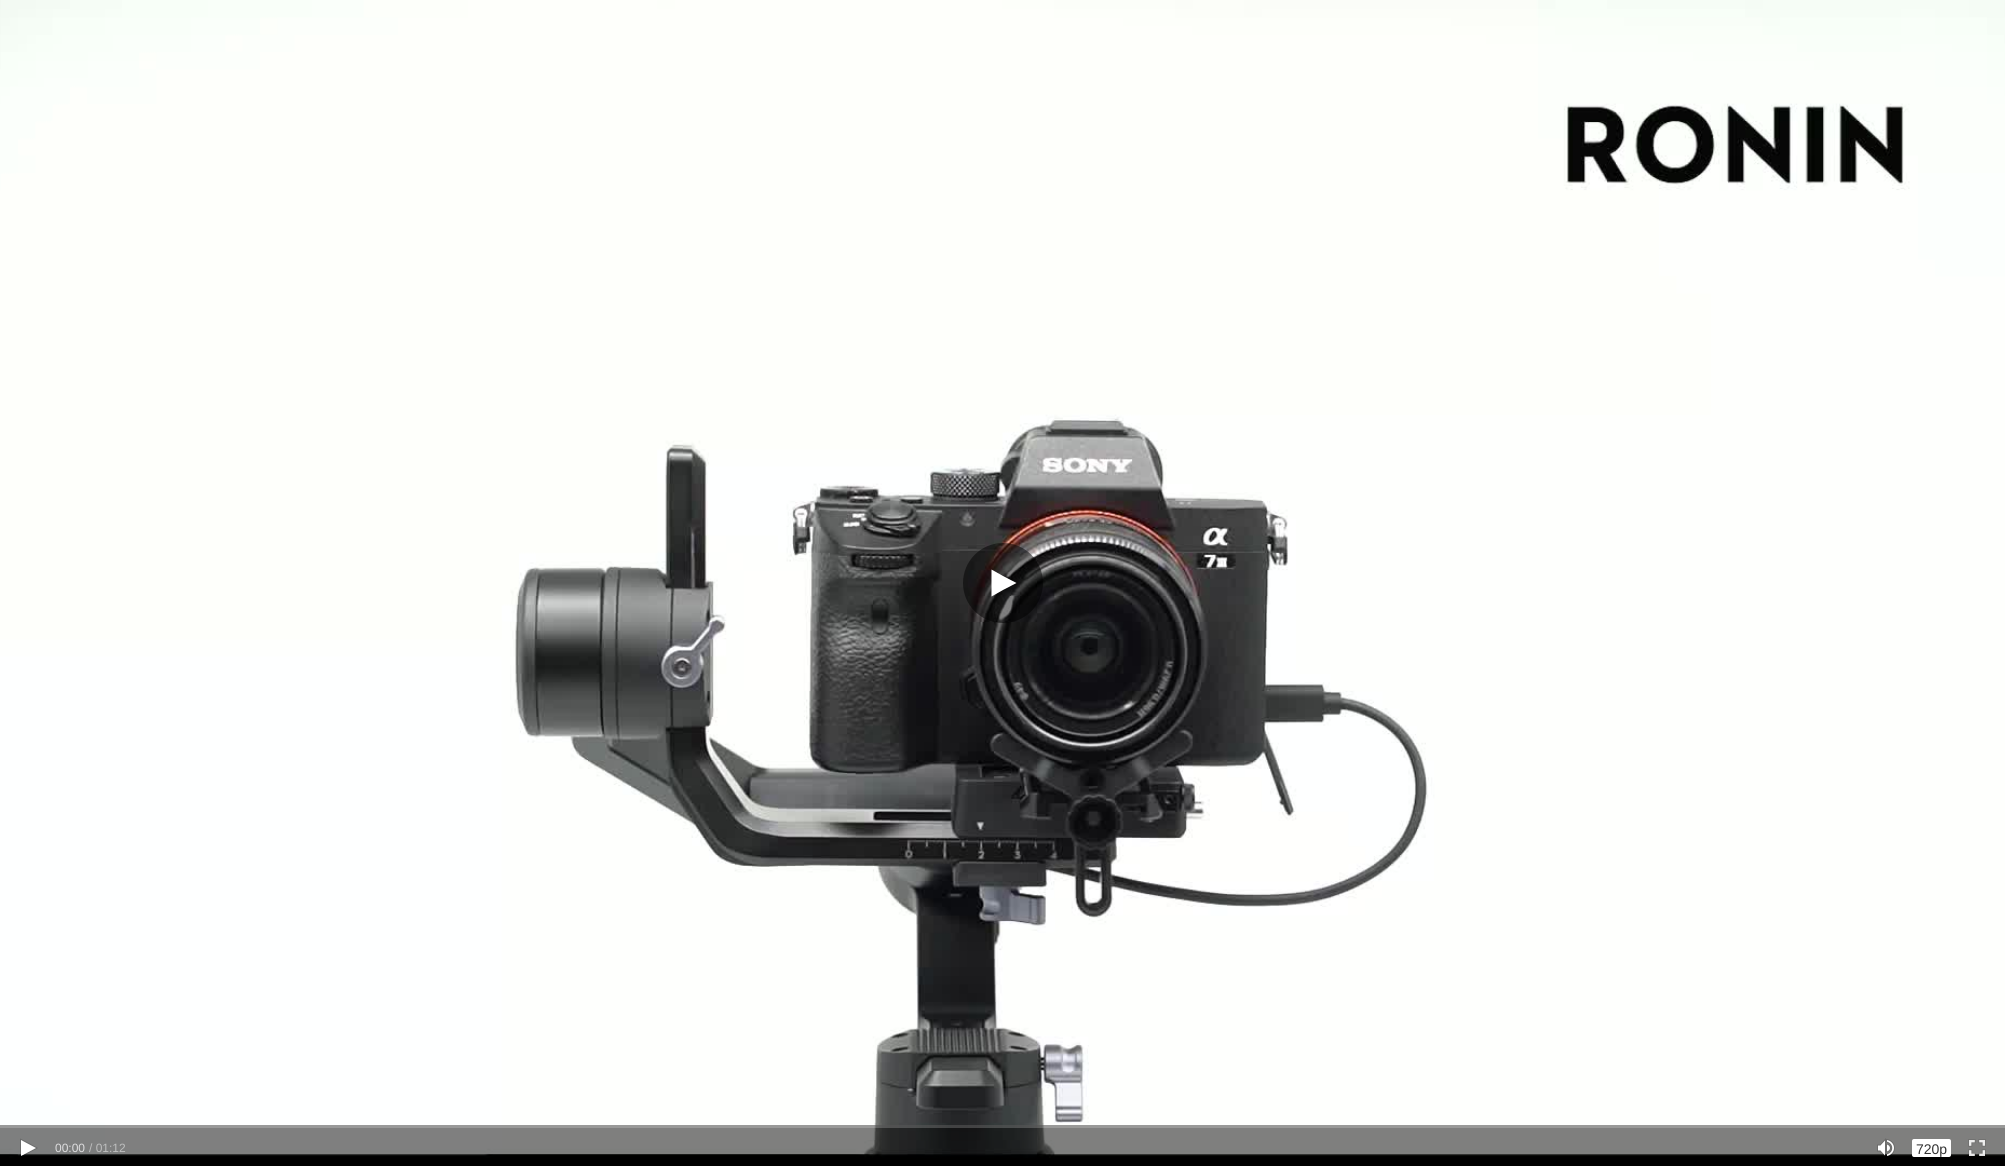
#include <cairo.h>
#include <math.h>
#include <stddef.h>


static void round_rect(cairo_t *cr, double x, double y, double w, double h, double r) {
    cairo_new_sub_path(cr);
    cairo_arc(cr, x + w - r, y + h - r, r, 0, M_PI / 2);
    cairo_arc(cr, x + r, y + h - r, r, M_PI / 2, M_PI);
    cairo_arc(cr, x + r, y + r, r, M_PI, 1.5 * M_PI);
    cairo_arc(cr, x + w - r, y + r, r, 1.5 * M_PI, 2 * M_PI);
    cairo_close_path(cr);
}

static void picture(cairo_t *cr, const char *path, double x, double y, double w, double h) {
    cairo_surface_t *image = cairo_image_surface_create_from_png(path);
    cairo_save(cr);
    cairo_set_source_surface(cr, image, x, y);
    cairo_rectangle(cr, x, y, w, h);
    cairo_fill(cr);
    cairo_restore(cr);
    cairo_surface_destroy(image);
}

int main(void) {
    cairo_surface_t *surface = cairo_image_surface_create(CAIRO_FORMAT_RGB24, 2005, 1166);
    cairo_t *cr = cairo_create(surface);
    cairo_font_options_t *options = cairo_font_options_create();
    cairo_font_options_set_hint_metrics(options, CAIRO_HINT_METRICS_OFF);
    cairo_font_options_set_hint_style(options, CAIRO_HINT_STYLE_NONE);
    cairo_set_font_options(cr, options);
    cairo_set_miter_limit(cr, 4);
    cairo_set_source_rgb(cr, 0, 0, 0);
    cairo_paint(cr);
    picture(cr, "img1.png", 0, 0, 2005, 1158);
    cairo_set_source_rgba(cr, 0, 0, 0, 0.5);
    cairo_arc(cr, 1003, 583, 40, 0, 2 * M_PI);
    cairo_fill(cr);
    cairo_set_source_rgb(cr, 1, 1, 1);
    cairo_new_path(cr);
    cairo_move_to(cr, 991.5, 569.5);
    cairo_line_to(cr, 1003, 576);
    cairo_line_to(cr, 1003, 590);
    cairo_line_to(cr, 991.5, 596.5);
    cairo_close_path(cr);
    cairo_move_to(cr, 1003, 576);
    cairo_line_to(cr, 1016.5, 583);
    cairo_line_to(cr, 1003, 590);
    cairo_close_path(cr);
    cairo_fill(cr);
    cairo_set_source_rgba(cr, 0, 0, 0, 0.5);
    cairo_rectangle(cr, 0, 1125, 2005, 32);
    cairo_fill(cr);
    cairo_set_source_rgba(cr, 1, 1, 1, 0.2);
    cairo_rectangle(cr, 0, 1125, 2005, 3);
    cairo_fill(cr);
    picture(cr, "img2.png", 20, 1138, 18, 18);
    cairo_select_font_face(cr, "Liberation Sans", CAIRO_FONT_SLANT_NORMAL, CAIRO_FONT_WEIGHT_NORMAL);
    cairo_set_font_size(cr, 12);
    cairo_set_source_rgb(cr, 0.871, 0.871, 0.875);
    cairo_move_to(cr, 55, 1152);
    cairo_show_text(cr, "00:00");
    cairo_set_source_rgb(cr, 0.745, 0.749, 0.749);
    cairo_move_to(cr, 89, 1152);
    cairo_show_text(cr, "/ 01:12");
    picture(cr, "img3.png", 1877, 1138, 18, 18);
    cairo_set_source_rgb(cr, 1, 1, 1);
    round_rect(cr, 1912, 1139, 39, 18, 2);
    cairo_fill(cr);
    cairo_set_font_size(cr, 14);
    cairo_set_source_rgb(cr, 0.2, 0.2, 0.2);
    cairo_move_to(cr, 1916, 1154);
    cairo_show_text(cr, "720p");
    picture(cr, "img4.png", 1968, 1139, 18, 17);
    cairo_surface_write_to_png(surface, "page.png");
    cairo_font_options_destroy(options);
    cairo_destroy(cr);
    cairo_surface_destroy(surface);
    return 0;
}
